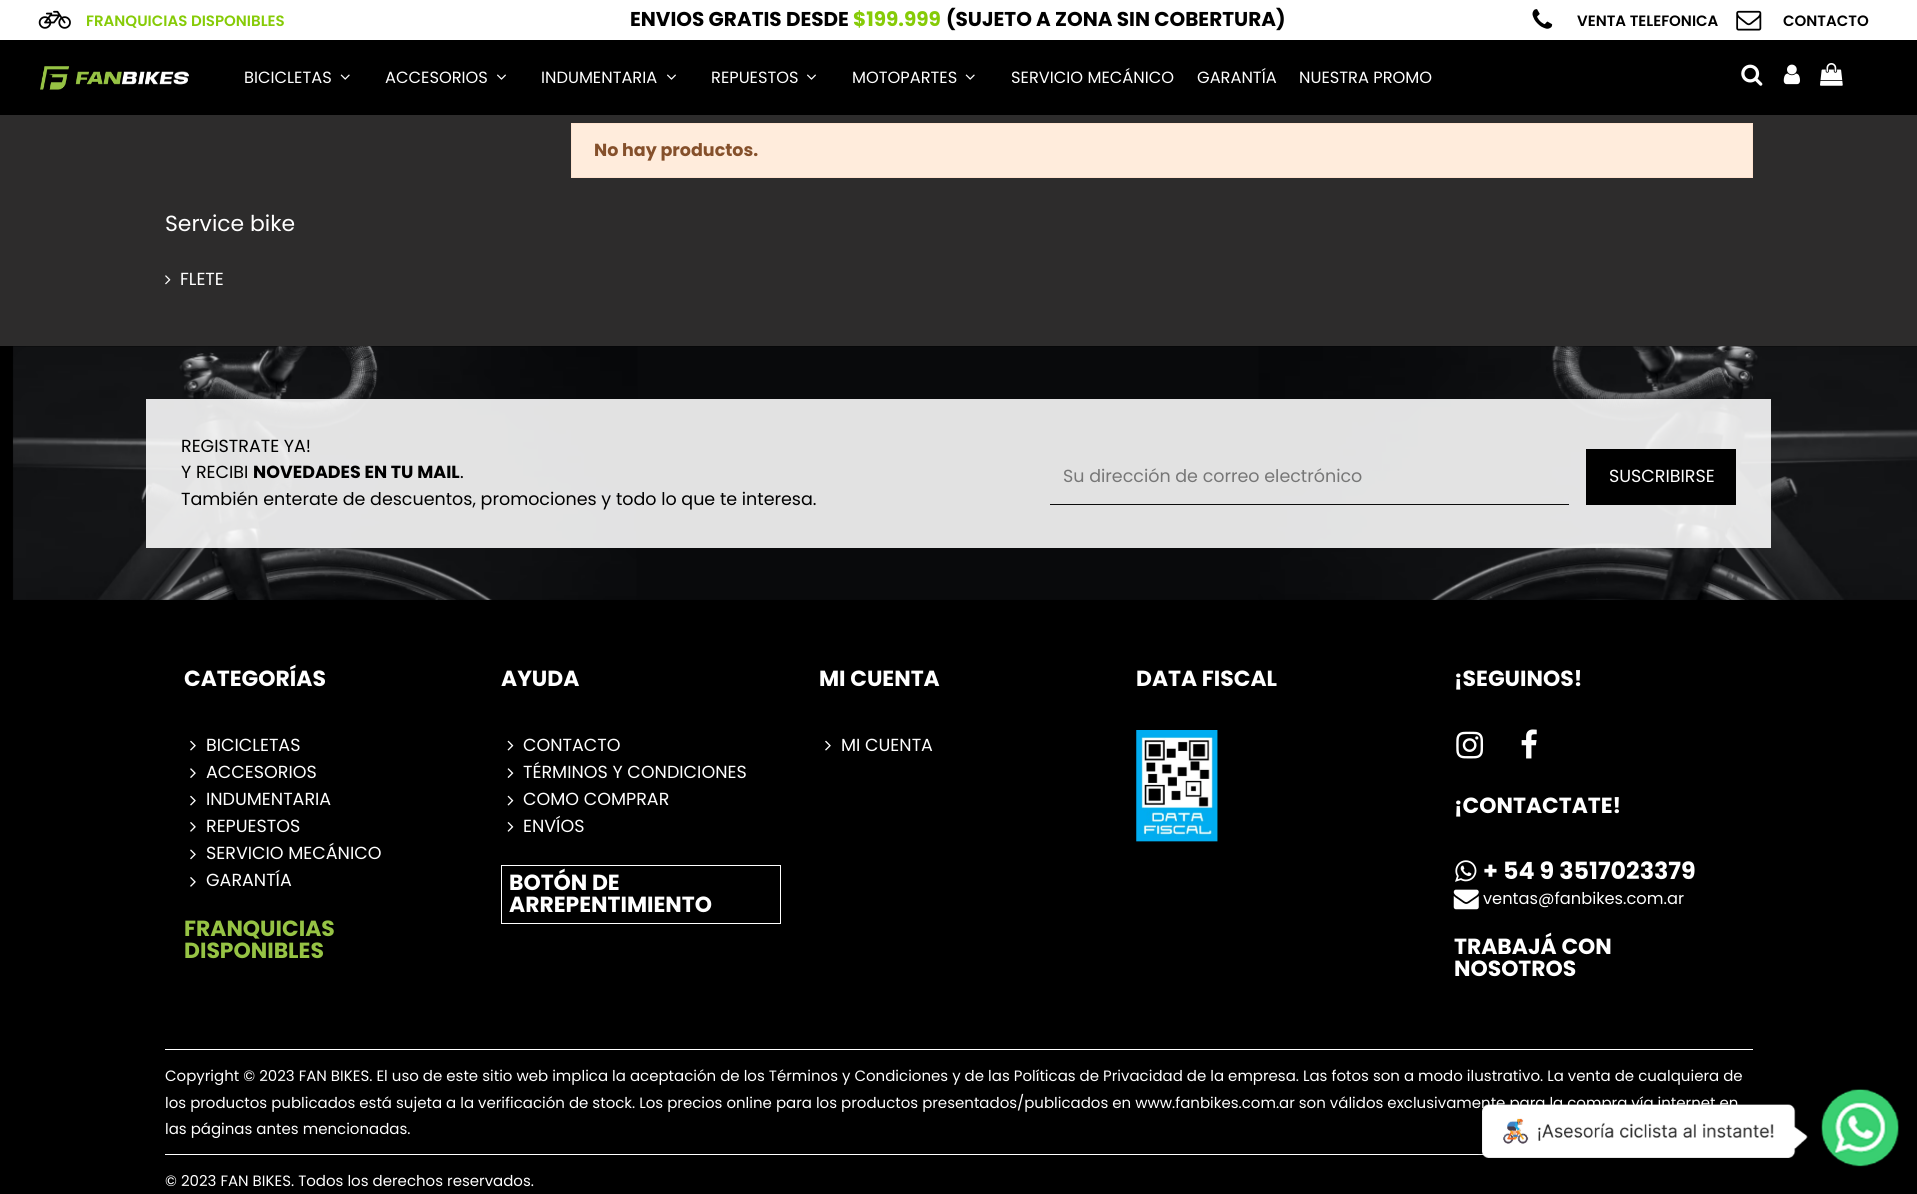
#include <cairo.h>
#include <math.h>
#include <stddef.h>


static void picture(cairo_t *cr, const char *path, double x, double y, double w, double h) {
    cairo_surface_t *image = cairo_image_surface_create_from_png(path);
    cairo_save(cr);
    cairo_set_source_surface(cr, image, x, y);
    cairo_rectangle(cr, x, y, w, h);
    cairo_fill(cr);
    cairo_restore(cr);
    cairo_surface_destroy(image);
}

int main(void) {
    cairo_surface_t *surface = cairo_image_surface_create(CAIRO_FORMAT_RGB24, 1917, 1194);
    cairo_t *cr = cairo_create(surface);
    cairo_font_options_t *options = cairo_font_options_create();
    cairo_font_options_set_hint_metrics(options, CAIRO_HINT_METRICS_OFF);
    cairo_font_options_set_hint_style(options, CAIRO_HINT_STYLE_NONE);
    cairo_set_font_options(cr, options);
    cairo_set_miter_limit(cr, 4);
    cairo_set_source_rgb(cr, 0.176, 0.173, 0.173);
    cairo_paint(cr);
    cairo_set_source_rgb(cr, 0, 0, 0);
    cairo_rectangle(cr, 0, 40, 1917, 75);
    cairo_fill(cr);
    cairo_set_source_rgb(cr, 1, 1, 1);
    cairo_rectangle(cr, 0, 0, 1917, 40);
    cairo_fill(cr);
    picture(cr, "img1.png", 38, 10, 33, 19);
    cairo_select_font_face(cr, "Poppins SemiBold", CAIRO_FONT_SLANT_NORMAL, CAIRO_FONT_WEIGHT_NORMAL);
    cairo_set_font_size(cr, 15);
    cairo_set_source_rgb(cr, 0.525, 0.796, 0.031);
    cairo_move_to(cr, 86, 26);
    cairo_show_text(cr, "FRANQUICIAS DISPONIBLES");
    cairo_select_font_face(cr, "Poppins", CAIRO_FONT_SLANT_NORMAL, CAIRO_FONT_WEIGHT_BOLD);
    cairo_set_font_size(cr, 20);
    cairo_set_source_rgb(cr, 0, 0, 0);
    cairo_move_to(cr, 630, 26);
    cairo_show_text(cr, "ENVIOS GRATIS DESDE");
    cairo_set_source_rgb(cr, 0.525, 0.796, 0.031);
    cairo_move_to(cr, 853, 26);
    cairo_show_text(cr, "$199.999");
    cairo_set_source_rgb(cr, 0, 0, 0);
    cairo_move_to(cr, 946, 26);
    cairo_show_text(cr, "(SUJETO A ZONA SIN COBERTURA)");
    picture(cr, "img2.png", 1532, 9, 21, 20);
    cairo_select_font_face(cr, "Poppins SemiBold", CAIRO_FONT_SLANT_NORMAL, CAIRO_FONT_WEIGHT_NORMAL);
    cairo_set_font_size(cr, 15);
    cairo_move_to(cr, 1577, 26);
    cairo_show_text(cr, "VENTA TELEFONICA");
    picture(cr, "img3.png", 1736, 10, 26, 21);
    cairo_move_to(cr, 1783, 26);
    cairo_show_text(cr, "CONTACTO");
    picture(cr, "img4.png", 40, 66, 149, 24);
    cairo_select_font_face(cr, "Poppins", CAIRO_FONT_SLANT_NORMAL, CAIRO_FONT_WEIGHT_NORMAL);
    cairo_set_font_size(cr, 16.25);
    cairo_set_source_rgb(cr, 1, 1, 1);
    cairo_move_to(cr, 244, 83);
    cairo_show_text(cr, "BICICLETAS");
    picture(cr, "img5.png", 340, 74, 10, 6);
    cairo_move_to(cr, 385, 83);
    cairo_show_text(cr, "ACCESORIOS");
    picture(cr, "img6.png", 497, 74, 9, 6);
    cairo_move_to(cr, 541, 83);
    cairo_show_text(cr, "INDUMENTARIA");
    picture(cr, "img6.png", 667, 74, 9, 6);
    cairo_move_to(cr, 711, 83);
    cairo_show_text(cr, "REPUESTOS");
    picture(cr, "img6.png", 807, 74, 9, 6);
    cairo_move_to(cr, 852, 83);
    cairo_show_text(cr, "MOTOPARTES");
    picture(cr, "img5.png", 965, 74, 10, 6);
    cairo_move_to(cr, 1011, 83);
    cairo_show_text(cr, "SERVICIO MECÁNICO");
    cairo_move_to(cr, 1197, 83);
    cairo_show_text(cr, "GARANTÍA");
    cairo_move_to(cr, 1299, 83);
    cairo_show_text(cr, "NUESTRA PROMO");
    picture(cr, "img7.png", 1741, 64, 22, 22);
    picture(cr, "img8.png", 1783, 64, 17, 21);
    picture(cr, "img9.png", 1820, 63, 23, 23);
    cairo_set_source_rgb(cr, 1, 0.922, 0.863);
    cairo_rectangle(cr, 571.5, 123.5, 1181, 54);
    cairo_fill_preserve(cr);
    cairo_set_source_rgb(cr, 1, 0.89, 0.812);
    cairo_set_line_width(cr, 1);
    cairo_stroke(cr);
    cairo_select_font_face(cr, "Poppins", CAIRO_FONT_SLANT_NORMAL, CAIRO_FONT_WEIGHT_BOLD);
    cairo_set_font_size(cr, 17.5);
    cairo_set_source_rgb(cr, 0.522, 0.314, 0.169);
    cairo_move_to(cr, 594, 156);
    cairo_show_text(cr, "No hay productos.");
    cairo_select_font_face(cr, "Poppins", CAIRO_FONT_SLANT_NORMAL, CAIRO_FONT_WEIGHT_NORMAL);
    cairo_set_font_size(cr, 21.9);
    cairo_set_source_rgb(cr, 1, 1, 1);
    cairo_move_to(cr, 165, 231);
    cairo_show_text(cr, "Service bike");
    picture(cr, "img10.png", 165, 275, 6, 10);
    cairo_set_font_size(cr, 17.5);
    cairo_move_to(cr, 180, 285);
    cairo_show_text(cr, "FLETE");
    cairo_set_source_rgb(cr, 0, 0, 0);
    cairo_rectangle(cr, 0, 346, 1917, 848);
    cairo_fill(cr);
    picture(cr, "img11.png", 12, 346, 1905, 254);
    cairo_set_source_rgba(cr, 1, 1, 1, 0.88);
    cairo_rectangle(cr, 146, 399, 813, 149);
    cairo_fill(cr);
    cairo_set_source_rgb(cr, 0, 0, 0);
    cairo_move_to(cr, 181, 452);
    cairo_show_text(cr, "REGISTRATE YA!");
    cairo_move_to(cr, 181, 478);
    cairo_show_text(cr, "Y RECIBI");
    cairo_select_font_face(cr, "Poppins", CAIRO_FONT_SLANT_NORMAL, CAIRO_FONT_WEIGHT_BOLD);
    cairo_move_to(cr, 253, 478);
    cairo_show_text(cr, "NOVEDADES EN TU MAIL");
    cairo_select_font_face(cr, "Poppins", CAIRO_FONT_SLANT_NORMAL, CAIRO_FONT_WEIGHT_NORMAL);
    cairo_move_to(cr, 460, 478);
    cairo_show_text(cr, ".");
    cairo_move_to(cr, 181, 505);
    cairo_show_text(cr, "También enterate de descuentos, promociones y todo lo que te interesa.");
    cairo_set_source_rgba(cr, 1, 1, 1, 0.88);
    cairo_rectangle(cr, 959, 399, 812, 149);
    cairo_fill(cr);
    cairo_set_source_rgb(cr, 0.047, 0.047, 0.047);
    cairo_rectangle(cr, 1050, 504, 519, 1);
    cairo_fill(cr);
    cairo_set_source_rgb(cr, 0.467, 0.467, 0.467);
    cairo_move_to(cr, 1063, 482);
    cairo_show_text(cr, "Su dirección de correo electrónico");
    cairo_set_source_rgb(cr, 0, 0, 0);
    cairo_rectangle(cr, 1586, 449, 150, 56);
    cairo_fill(cr);
    cairo_set_source_rgb(cr, 1, 1, 1);
    cairo_move_to(cr, 1609, 482);
    cairo_show_text(cr, "SUSCRIBIRSE");
    cairo_select_font_face(cr, "Poppins", CAIRO_FONT_SLANT_NORMAL, CAIRO_FONT_WEIGHT_BOLD);
    cairo_set_font_size(cr, 21.9);
    cairo_move_to(cr, 184, 686);
    cairo_show_text(cr, "CATEGORÍAS");
    picture(cr, "img12.png", 190, 740, 6, 11);
    cairo_select_font_face(cr, "Poppins", CAIRO_FONT_SLANT_NORMAL, CAIRO_FONT_WEIGHT_NORMAL);
    cairo_set_font_size(cr, 17.5);
    cairo_move_to(cr, 206, 751);
    cairo_show_text(cr, "BICICLETAS");
    picture(cr, "img13.png", 190, 768, 6, 10);
    cairo_move_to(cr, 206, 778);
    cairo_show_text(cr, "ACCESORIOS");
    picture(cr, "img12.png", 190, 795, 6, 11);
    cairo_move_to(cr, 206, 805);
    cairo_show_text(cr, "INDUMENTARIA");
    picture(cr, "img14.png", 190, 822, 6, 10);
    cairo_move_to(cr, 206, 832);
    cairo_show_text(cr, "REPUESTOS");
    picture(cr, "img15.png", 190, 849, 6, 11);
    cairo_move_to(cr, 206, 859);
    cairo_show_text(cr, "SERVICIO MECÁNICO");
    picture(cr, "img14.png", 190, 877, 6, 10);
    cairo_move_to(cr, 206, 886);
    cairo_show_text(cr, "GARANTÍA");
    cairo_select_font_face(cr, "Poppins", CAIRO_FONT_SLANT_NORMAL, CAIRO_FONT_WEIGHT_BOLD);
    cairo_set_font_size(cr, 21.9);
    cairo_set_source_rgb(cr, 0.588, 0.765, 0.267);
    cairo_move_to(cr, 184, 936);
    cairo_show_text(cr, "FRANQUICIAS");
    cairo_move_to(cr, 184, 958);
    cairo_show_text(cr, "DISPONIBLES");
    cairo_set_source_rgb(cr, 1, 1, 1);
    cairo_move_to(cr, 501, 686);
    cairo_show_text(cr, "AYUDA");
    picture(cr, "img16.png", 507, 740, 7, 11);
    cairo_select_font_face(cr, "Poppins", CAIRO_FONT_SLANT_NORMAL, CAIRO_FONT_WEIGHT_NORMAL);
    cairo_set_font_size(cr, 17.5);
    cairo_move_to(cr, 523, 751);
    cairo_show_text(cr, "CONTACTO");
    picture(cr, "img17.png", 507, 768, 7, 10);
    cairo_move_to(cr, 523, 778);
    cairo_show_text(cr, "TÉRMINOS Y CONDICIONES");
    picture(cr, "img16.png", 507, 795, 7, 11);
    cairo_move_to(cr, 523, 805);
    cairo_show_text(cr, "COMO COMPRAR");
    picture(cr, "img18.png", 507, 822, 7, 10);
    cairo_move_to(cr, 523, 832);
    cairo_show_text(cr, "ENVÍOS");
    cairo_rectangle(cr, 501.5, 865.5, 279, 58);
    cairo_stroke(cr);
    cairo_select_font_face(cr, "Poppins", CAIRO_FONT_SLANT_NORMAL, CAIRO_FONT_WEIGHT_BOLD);
    cairo_set_font_size(cr, 21.9);
    cairo_move_to(cr, 509, 890);
    cairo_show_text(cr, "BOTÓN DE");
    cairo_move_to(cr, 509, 912);
    cairo_show_text(cr, "ARREPENTIMIENTO");
    cairo_move_to(cr, 819, 686);
    cairo_show_text(cr, "MI CUENTA");
    picture(cr, "img12.png", 825, 740, 6, 11);
    cairo_select_font_face(cr, "Poppins", CAIRO_FONT_SLANT_NORMAL, CAIRO_FONT_WEIGHT_NORMAL);
    cairo_set_font_size(cr, 17.5);
    cairo_move_to(cr, 841, 751);
    cairo_show_text(cr, "MI CUENTA");
    cairo_select_font_face(cr, "Poppins", CAIRO_FONT_SLANT_NORMAL, CAIRO_FONT_WEIGHT_BOLD);
    cairo_set_font_size(cr, 21.9);
    cairo_move_to(cr, 1136, 686);
    cairo_show_text(cr, "DATA FISCAL");
    picture(cr, "img19.png", 1136, 730, 82, 112);
    cairo_move_to(cr, 1454, 686);
    cairo_show_text(cr, "¡SEGUINOS!");
    picture(cr, "img20.png", 1456, 731, 28, 28);
    picture(cr, "img21.png", 1521, 729, 16, 30);
    cairo_move_to(cr, 1454, 813);
    cairo_show_text(cr, "¡CONTACTATE!");
    picture(cr, "img22.png", 1455, 860, 22, 22);
    cairo_set_font_size(cr, 23.75);
    cairo_move_to(cr, 1483, 879);
    cairo_show_text(cr, "+ 54 9 3517023379");
    picture(cr, "img23.png", 1453, 889, 26, 21);
    cairo_select_font_face(cr, "Poppins", CAIRO_FONT_SLANT_NORMAL, CAIRO_FONT_WEIGHT_NORMAL);
    cairo_set_font_size(cr, 16.25);
    cairo_move_to(cr, 1483, 904);
    cairo_show_text(cr, "ventas@fanbikes.com.ar");
    cairo_select_font_face(cr, "Poppins", CAIRO_FONT_SLANT_NORMAL, CAIRO_FONT_WEIGHT_BOLD);
    cairo_set_font_size(cr, 21.9);
    cairo_move_to(cr, 1454, 954);
    cairo_show_text(cr, "TRABAJÁ CON");
    cairo_move_to(cr, 1454, 976);
    cairo_show_text(cr, "NOSOTROS");
    cairo_rectangle(cr, 165, 1049, 1588, 1);
    cairo_fill(cr);
    cairo_rectangle(cr, 165, 1154, 1319, 1);
    cairo_fill(cr);
    cairo_select_font_face(cr, "Poppins", CAIRO_FONT_SLANT_NORMAL, CAIRO_FONT_WEIGHT_NORMAL);
    cairo_set_font_size(cr, 15);
    cairo_move_to(cr, 165, 1081);
    cairo_show_text(cr, "Copyright © 2023 FAN BIKES. El uso de este sitio web implica la aceptación de los Términos y Condiciones y de las Políticas de Privacidad de la empresa. Las fotos son a modo ilustrativo. La venta de cualquiera de");
    cairo_move_to(cr, 165, 1108);
    cairo_show_text(cr, "los productos publicados está sujeta a la verificación de stock. Los precios online para los productos presentados/publicados en www.fanbikes.com.ar son válidos exclusivamente para la compra vía internet en");
    cairo_move_to(cr, 165, 1134);
    cairo_show_text(cr, "las páginas antes mencionadas.");
    cairo_move_to(cr, 165, 1186);
    cairo_show_text(cr, "© 2023 FAN BIKES. Todos los derechos reservados.");
    picture(cr, "img24.png", 1478, 1089, 421, 78);
    cairo_surface_write_to_png(surface, "page.png");
    cairo_font_options_destroy(options);
    cairo_destroy(cr);
    cairo_surface_destroy(surface);
    return 0;
}
